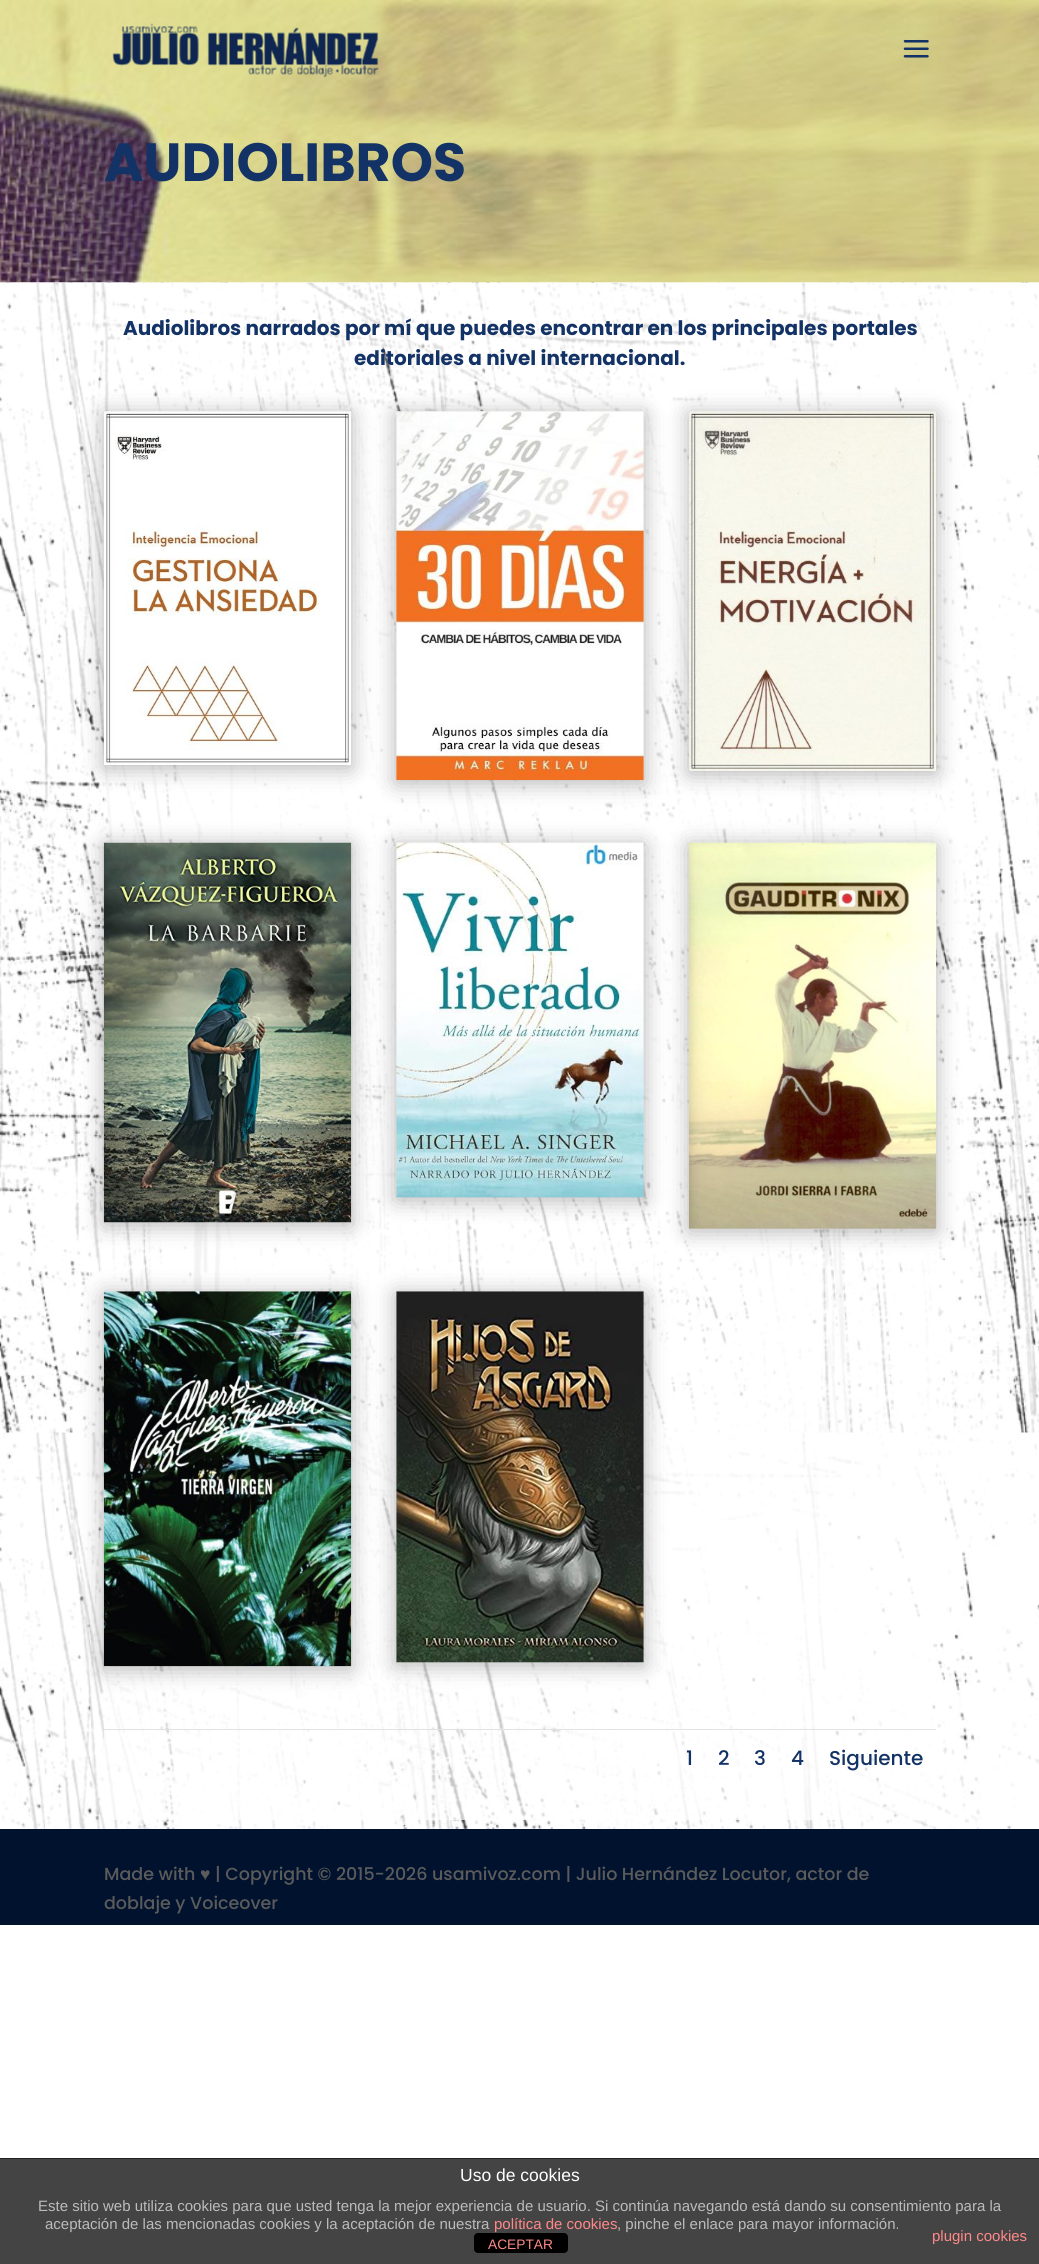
#include <cairo.h>
#include <math.h>
#include <stddef.h>


static void round_rect(cairo_t *cr, double x, double y, double w, double h, double r) {
    cairo_new_sub_path(cr);
    cairo_arc(cr, x + w - r, y + h - r, r, 0, M_PI / 2);
    cairo_arc(cr, x + r, y + h - r, r, M_PI / 2, M_PI);
    cairo_arc(cr, x + r, y + r, r, M_PI, 1.5 * M_PI);
    cairo_arc(cr, x + w - r, y + r, r, 1.5 * M_PI, 2 * M_PI);
    cairo_close_path(cr);
}

static void shadow(cairo_t *cr, double x, double y, double w, double h, double r, double blur, double alpha) {
    cairo_push_group_with_content(cr, CAIRO_CONTENT_ALPHA);
    cairo_set_operator(cr, CAIRO_OPERATOR_SOURCE);
    for (int i = 15; i >= -15 && fmin(w, h) + blur * i / 3 > 0; i -= 2) {
        double e = blur * i / 6;
        cairo_set_source_rgba(cr, 0, 0, 0, alpha * erfc((i - 1) / 8.5) / 2);
        round_rect(cr, x - e, y - e, w + 2 * e, h + 2 * e, fmax(0, fmin(r + e + blur * .6, fmin(w, h) / 2 + e)));
        cairo_fill(cr);
    }
    cairo_pattern_t *soft = cairo_pop_group(cr);
    cairo_mask(cr, soft);
    cairo_pattern_destroy(soft);
}

static void picture(cairo_t *cr, const char *path, double x, double y, double w, double h) {
    cairo_surface_t *image = cairo_image_surface_create_from_png(path);
    cairo_save(cr);
    cairo_set_source_surface(cr, image, x, y);
    cairo_rectangle(cr, x, y, w, h);
    cairo_fill(cr);
    cairo_restore(cr);
    cairo_surface_destroy(image);
}

int main(void) {
    cairo_surface_t *surface = cairo_image_surface_create(CAIRO_FORMAT_RGB24, 1039, 2264);
    cairo_t *cr = cairo_create(surface);
    cairo_font_options_t *options = cairo_font_options_create();
    cairo_font_options_set_hint_metrics(options, CAIRO_HINT_METRICS_OFF);
    cairo_font_options_set_hint_style(options, CAIRO_HINT_STYLE_NONE);
    cairo_set_font_options(cr, options);
    cairo_set_miter_limit(cr, 4);
    cairo_set_source_rgb(cr, 1, 1, 1);
    cairo_paint(cr);
    picture(cr, "img3.png", 0, 0, 1039, 283);
    picture(cr, "img1.png", 112, 23, 267, 55);
    picture(cr, "img2.png", 903, 40, 26, 18);
    cairo_select_font_face(cr, "Poppins", CAIRO_FONT_SLANT_NORMAL, CAIRO_FONT_WEIGHT_BOLD);
    cairo_set_font_size(cr, 53.75);
    cairo_set_source_rgb(cr, 0.075, 0.2, 0.4);
    cairo_move_to(cr, 104, 181);
    cairo_show_text(cr, "AUDIOLIBROS");
    picture(cr, "img4.png", 0, 282, 1039, 1547);
    cairo_set_font_size(cr, 20);
    cairo_move_to(cr, 123, 335);
    cairo_show_text(cr, "Audiolibros narrados por mí que puedes encontrar en los principales portales");
    cairo_move_to(cr, 354, 365);
    cairo_show_text(cr, "editoriales a nivel internacional.");
    cairo_set_source_rgba(cr, 1, 1, 1, 0.71);
    cairo_rectangle(cr, 104, 411, 832, 1409);
    cairo_fill(cr);
    cairo_set_source_rgb(cr, 0, 0, 0);
    shadow(cr, 104, 414, 247, 354, 0, 11, 0.3);
    picture(cr, "img5.png", 103, 411, 248, 354);
    shadow(cr, 396, 414, 248, 369, 0, 11, 0.3);
    picture(cr, "img6.png", 396, 411, 248, 369);
    shadow(cr, 689, 414, 247, 360, 0, 11, 0.3);
    picture(cr, "img7.png", 689, 411, 247, 360);
    shadow(cr, 104, 845, 247, 380, 0, 11, 0.3);
    picture(cr, "img8.png", 103, 842, 249, 381);
    shadow(cr, 396, 845, 248, 355, 0, 11, 0.3);
    picture(cr, "img9.png", 396, 842, 248, 356);
    shadow(cr, 689, 845, 247, 386, 0, 11, 0.3);
    picture(cr, "img10.png", 688, 842, 249, 387);
    shadow(cr, 104, 1294, 247, 375, 0, 11, 0.3);
    picture(cr, "img11.png", 103, 1291, 249, 376);
    shadow(cr, 396, 1294, 248, 371, 0, 11, 0.3);
    picture(cr, "img12.png", 396, 1291, 248, 372);
    cairo_set_source_rgb(cr, 0.886, 0.886, 0.886);
    cairo_rectangle(cr, 104, 1729, 832, 1);
    cairo_fill(cr);
    cairo_select_font_face(cr, "Poppins Medium", CAIRO_FONT_SLANT_NORMAL, CAIRO_FONT_WEIGHT_NORMAL);
    cairo_set_source_rgb(cr, 0.075, 0.2, 0.4);
    cairo_move_to(cr, 686, 1765);
    cairo_show_text(cr, "1");
    cairo_move_to(cr, 718, 1765);
    cairo_show_text(cr, "2");
    cairo_move_to(cr, 754, 1765);
    cairo_show_text(cr, "3");
    cairo_move_to(cr, 791, 1765);
    cairo_show_text(cr, "4");
    cairo_move_to(cr, 829, 1765);
    cairo_show_text(cr, "Siguiente");
    cairo_set_source_rgb(cr, 0, 0.071, 0.18);
    cairo_rectangle(cr, 0, 1829, 1039, 96);
    cairo_fill(cr);
    cairo_set_font_size(cr, 17.5);
    cairo_set_source_rgb(cr, 0.357, 0.357, 0.357);
    cairo_move_to(cr, 104, 1880);
    cairo_show_text(cr, "Made with");
    cairo_select_font_face(cr, "Liberation Sans", CAIRO_FONT_SLANT_NORMAL, CAIRO_FONT_WEIGHT_NORMAL);
    cairo_move_to(cr, 200, 1880);
    cairo_show_text(cr, "♥");
    cairo_select_font_face(cr, "Poppins Medium", CAIRO_FONT_SLANT_NORMAL, CAIRO_FONT_WEIGHT_NORMAL);
    cairo_move_to(cr, 215, 1880);
    cairo_show_text(cr, "| Copyright © 2015-2026 usamivoz.com | Julio Hernández Locutor, actor de");
    cairo_move_to(cr, 104, 1909);
    cairo_show_text(cr, "doblaje y Voiceover");
    cairo_set_source_rgb(cr, 0.267, 0.267, 0.267);
    cairo_rectangle(cr, 0, 2159, 1039, 105);
    cairo_fill(cr);
    cairo_set_source_rgb(cr, 0.133, 0.133, 0.133);
    cairo_rectangle(cr, 0, 2158, 1039, 1);
    cairo_fill(cr);
    cairo_select_font_face(cr, "Liberation Sans", CAIRO_FONT_SLANT_NORMAL, CAIRO_FONT_WEIGHT_NORMAL);
    cairo_set_source_rgb(cr, 1, 1, 1);
    cairo_move_to(cr, 460, 2181);
    cairo_show_text(cr, "Uso de cookies");
    cairo_set_font_size(cr, 15);
    cairo_set_source_rgb(cr, 0.733, 0.733, 0.733);
    cairo_move_to(cr, 38, 2211);
    cairo_show_text(cr, "Este sitio web utiliza cookies para que usted tenga la mejor experiencia de usuario. Si continúa navegando está dando su consentimiento para la");
    cairo_move_to(cr, 45, 2229);
    cairo_show_text(cr, "aceptación de las mencionadas cookies y la aceptación de nuestra");
    cairo_set_source_rgb(cr, 1, 0.533, 0.533);
    cairo_move_to(cr, 494, 2229);
    cairo_show_text(cr, "política de cookies");
    cairo_set_source_rgb(cr, 0.733, 0.733, 0.733);
    cairo_move_to(cr, 617, 2229);
    cairo_show_text(cr, ", pinche el enlace para mayor información.");
    cairo_set_source_rgb(cr, 1, 0.533, 0.533);
    cairo_move_to(cr, 932, 2241);
    cairo_show_text(cr, "plugin cookies");
    cairo_set_source_rgb(cr, 0, 0, 0);
    round_rect(cr, 474, 2233, 94, 20, 4);
    cairo_fill(cr);
    cairo_set_font_size(cr, 13.75);
    cairo_set_source_rgb(cr, 1, 0.533, 0.533);
    cairo_move_to(cr, 488, 2249);
    cairo_show_text(cr, "ACEPTAR");
    cairo_surface_write_to_png(surface, "page.png");
    cairo_font_options_destroy(options);
    cairo_destroy(cr);
    cairo_surface_destroy(surface);
    return 0;
}
